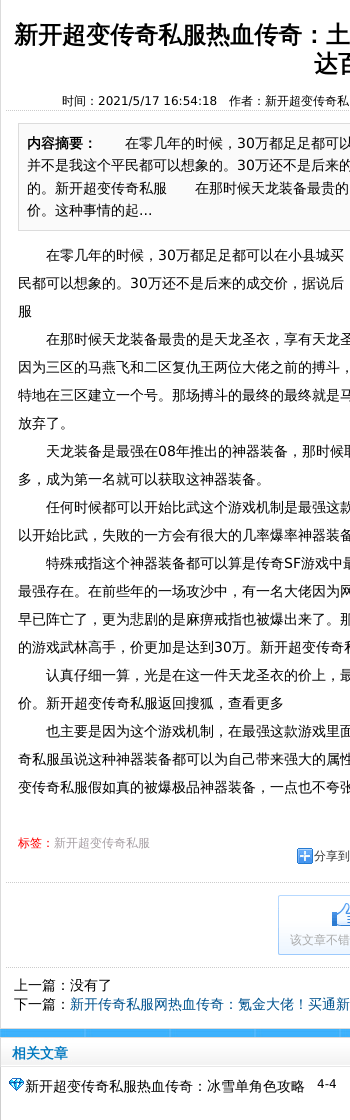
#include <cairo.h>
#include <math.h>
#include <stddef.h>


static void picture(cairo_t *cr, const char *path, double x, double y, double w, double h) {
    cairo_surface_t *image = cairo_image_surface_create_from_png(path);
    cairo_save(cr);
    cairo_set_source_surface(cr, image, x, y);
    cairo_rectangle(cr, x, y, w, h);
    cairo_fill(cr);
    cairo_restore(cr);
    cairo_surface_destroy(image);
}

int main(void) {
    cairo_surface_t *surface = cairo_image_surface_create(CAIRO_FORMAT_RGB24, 350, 1120);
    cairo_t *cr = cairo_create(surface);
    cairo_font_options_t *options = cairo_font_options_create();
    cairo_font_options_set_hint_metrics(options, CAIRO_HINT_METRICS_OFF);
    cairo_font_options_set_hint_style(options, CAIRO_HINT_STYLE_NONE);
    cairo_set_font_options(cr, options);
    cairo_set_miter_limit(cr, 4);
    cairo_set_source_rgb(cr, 1, 1, 1);
    cairo_paint(cr);
    picture(cr, "img1.png", 0, 1029, 350, 8);
    cairo_set_source_rgb(cr, 0.859, 0.859, 0.859);
    cairo_rectangle(cr, 0, 1028, 350, 1);
    cairo_fill(cr);
    cairo_rectangle(cr, 0, 0, 1, 1029);
    cairo_fill(cr);
    cairo_new_path(cr);
    cairo_move_to(cr, 6, 110.5);
    cairo_line_to(cr, 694, 110.5);
    cairo_set_source_rgb(cr, 0.8, 0.8, 0.8);
    cairo_set_line_width(cr, 1);
    cairo_set_dash(cr, (double[]){1, 1}, 2, 0);
    cairo_stroke(cr);
    cairo_select_font_face(cr, "WenQuanYi Zen Hei", CAIRO_FONT_SLANT_NORMAL, CAIRO_FONT_WEIGHT_BOLD);
    cairo_set_font_size(cr, 24);
    cairo_set_source_rgb(cr, 0, 0, 0);
    cairo_move_to(cr, 14, 43);
    cairo_show_text(cr, "新开超变传奇私服热血传奇：土");
    cairo_move_to(cr, 314, 72);
    cairo_show_text(cr, "达百");
    cairo_select_font_face(cr, "WenQuanYi Zen Hei Medium", CAIRO_FONT_SLANT_NORMAL, CAIRO_FONT_WEIGHT_NORMAL);
    cairo_set_font_size(cr, 12);
    cairo_move_to(cr, 62, 105);
    cairo_show_text(cr, "时间：");
    cairo_select_font_face(cr, "DejaVu Sans", CAIRO_FONT_SLANT_NORMAL, CAIRO_FONT_WEIGHT_NORMAL);
    cairo_move_to(cr, 98, 105);
    cairo_show_text(cr, "2021/5/17 16:54:18");
    cairo_select_font_face(cr, "WenQuanYi Zen Hei Medium", CAIRO_FONT_SLANT_NORMAL, CAIRO_FONT_WEIGHT_NORMAL);
    cairo_move_to(cr, 229, 105);
    cairo_show_text(cr, "作者：新开超变传奇私");
    cairo_new_path(cr);
    cairo_move_to(cr, 6, 882.5);
    cairo_line_to(cr, 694, 882.5);
    cairo_set_source_rgb(cr, 0.8, 0.8, 0.8);
    cairo_stroke(cr);
    cairo_set_source_rgb(cr, 0.98, 0.98, 0.98);
    cairo_rectangle(cr, 18.5, 123.5, 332, 107);
    cairo_fill_preserve(cr);
    cairo_set_source_rgb(cr, 0.863, 0.863, 0.863);
    cairo_set_dash(cr, NULL, 0, 0);
    cairo_stroke(cr);
    cairo_select_font_face(cr, "WenQuanYi Zen Hei", CAIRO_FONT_SLANT_NORMAL, CAIRO_FONT_WEIGHT_BOLD);
    cairo_set_font_size(cr, 14);
    cairo_set_source_rgb(cr, 0, 0, 0);
    cairo_move_to(cr, 27, 148);
    cairo_show_text(cr, "内容摘要：");
    cairo_select_font_face(cr, "WenQuanYi Zen Hei Medium", CAIRO_FONT_SLANT_NORMAL, CAIRO_FONT_WEIGHT_NORMAL);
    cairo_move_to(cr, 125, 148);
    cairo_show_text(cr, "在零几年的时候，");
    cairo_select_font_face(cr, "DejaVu Sans", CAIRO_FONT_SLANT_NORMAL, CAIRO_FONT_WEIGHT_NORMAL);
    cairo_move_to(cr, 237, 148);
    cairo_show_text(cr, "30");
    cairo_select_font_face(cr, "WenQuanYi Zen Hei Medium", CAIRO_FONT_SLANT_NORMAL, CAIRO_FONT_WEIGHT_NORMAL);
    cairo_move_to(cr, 255, 148);
    cairo_show_text(cr, "万都足足都可以");
    cairo_move_to(cr, 27, 170);
    cairo_show_text(cr, "并不是我这个平民都可以想象的。");
    cairo_select_font_face(cr, "DejaVu Sans", CAIRO_FONT_SLANT_NORMAL, CAIRO_FONT_WEIGHT_NORMAL);
    cairo_move_to(cr, 237, 170);
    cairo_show_text(cr, "30");
    cairo_select_font_face(cr, "WenQuanYi Zen Hei Medium", CAIRO_FONT_SLANT_NORMAL, CAIRO_FONT_WEIGHT_NORMAL);
    cairo_move_to(cr, 255, 170);
    cairo_show_text(cr, "万还不是后来的");
    cairo_move_to(cr, 27, 193);
    cairo_show_text(cr, "的。新开超变传奇私服　　在那时候天龙装备最贵的");
    cairo_move_to(cr, 27, 215);
    cairo_show_text(cr, "价。这种事情的起");
    cairo_select_font_face(cr, "DejaVu Sans", CAIRO_FONT_SLANT_NORMAL, CAIRO_FONT_WEIGHT_NORMAL);
    cairo_move_to(cr, 139, 215);
    cairo_show_text(cr, "...");
    cairo_select_font_face(cr, "WenQuanYi Zen Hei Medium", CAIRO_FONT_SLANT_NORMAL, CAIRO_FONT_WEIGHT_NORMAL);
    cairo_move_to(cr, 46, 260);
    cairo_show_text(cr, "在零几年的时候，");
    cairo_select_font_face(cr, "DejaVu Sans", CAIRO_FONT_SLANT_NORMAL, CAIRO_FONT_WEIGHT_NORMAL);
    cairo_move_to(cr, 158, 260);
    cairo_show_text(cr, "30");
    cairo_select_font_face(cr, "WenQuanYi Zen Hei Medium", CAIRO_FONT_SLANT_NORMAL, CAIRO_FONT_WEIGHT_NORMAL);
    cairo_move_to(cr, 176, 260);
    cairo_show_text(cr, "万都足足都可以在小县城买");
    cairo_move_to(cr, 18, 288);
    cairo_show_text(cr, "民都可以想象的。");
    cairo_select_font_face(cr, "DejaVu Sans", CAIRO_FONT_SLANT_NORMAL, CAIRO_FONT_WEIGHT_NORMAL);
    cairo_move_to(cr, 130, 288);
    cairo_show_text(cr, "30");
    cairo_select_font_face(cr, "WenQuanYi Zen Hei Medium", CAIRO_FONT_SLANT_NORMAL, CAIRO_FONT_WEIGHT_NORMAL);
    cairo_move_to(cr, 148, 288);
    cairo_show_text(cr, "万还不是后来的成交价，据说后");
    cairo_move_to(cr, 18, 316);
    cairo_show_text(cr, "服");
    cairo_move_to(cr, 46, 344);
    cairo_show_text(cr, "在那时候天龙装备最贵的是天龙圣衣，享有天龙圣");
    cairo_move_to(cr, 18, 372);
    cairo_show_text(cr, "因为三区的马燕飞和二区复仇王两位大佬之前的搏斗，");
    cairo_move_to(cr, 18, 400);
    cairo_show_text(cr, "特地在三区建立一个号。那场搏斗的最终的最终就是马");
    cairo_move_to(cr, 18, 428);
    cairo_show_text(cr, "放弃了。");
    cairo_move_to(cr, 46, 456);
    cairo_show_text(cr, "天龙装备是最强在");
    cairo_select_font_face(cr, "DejaVu Sans", CAIRO_FONT_SLANT_NORMAL, CAIRO_FONT_WEIGHT_NORMAL);
    cairo_move_to(cr, 158, 456);
    cairo_show_text(cr, "08");
    cairo_select_font_face(cr, "WenQuanYi Zen Hei Medium", CAIRO_FONT_SLANT_NORMAL, CAIRO_FONT_WEIGHT_NORMAL);
    cairo_move_to(cr, 176, 456);
    cairo_show_text(cr, "年推出的神器装备，那时候取");
    cairo_move_to(cr, 18, 484);
    cairo_show_text(cr, "多，成为第一名就可以获取这神器装备。");
    cairo_move_to(cr, 46, 512);
    cairo_show_text(cr, "任何时候都可以开始比武这个游戏机制是最强这款");
    cairo_move_to(cr, 18, 540);
    cairo_show_text(cr, "以开始比武，失敗的一方会有很大的几率爆率神器装备");
    cairo_move_to(cr, 46, 568);
    cairo_show_text(cr, "特殊戒指这个神器装备都可以算是传奇");
    cairo_select_font_face(cr, "DejaVu Sans", CAIRO_FONT_SLANT_NORMAL, CAIRO_FONT_WEIGHT_NORMAL);
    cairo_move_to(cr, 284, 568);
    cairo_show_text(cr, "SF");
    cairo_select_font_face(cr, "WenQuanYi Zen Hei Medium", CAIRO_FONT_SLANT_NORMAL, CAIRO_FONT_WEIGHT_NORMAL);
    cairo_move_to(cr, 301, 568);
    cairo_show_text(cr, "游戏中最");
    cairo_move_to(cr, 18, 596);
    cairo_show_text(cr, "最强存在。在前些年的一场攻沙中，有一名大佬因为网");
    cairo_move_to(cr, 18, 624);
    cairo_show_text(cr, "早已阵亡了，更为悲剧的是麻痹戒指也被爆出来了。那");
    cairo_move_to(cr, 18, 652);
    cairo_show_text(cr, "的游戏武林高手，价更加是达到");
    cairo_select_font_face(cr, "DejaVu Sans", CAIRO_FONT_SLANT_NORMAL, CAIRO_FONT_WEIGHT_NORMAL);
    cairo_move_to(cr, 214, 652);
    cairo_show_text(cr, "30");
    cairo_select_font_face(cr, "WenQuanYi Zen Hei Medium", CAIRO_FONT_SLANT_NORMAL, CAIRO_FONT_WEIGHT_NORMAL);
    cairo_move_to(cr, 232, 652);
    cairo_show_text(cr, "万。新开超变传奇私");
    cairo_move_to(cr, 46, 680);
    cairo_show_text(cr, "认真仔细一算，光是在这一件天龙圣衣的价上，最");
    cairo_move_to(cr, 18, 708);
    cairo_show_text(cr, "价。新开超变传奇私服返回搜狐，查看更多");
    cairo_move_to(cr, 46, 736);
    cairo_show_text(cr, "也主要是因为这个游戏机制，在最强这款游戏里面");
    cairo_move_to(cr, 18, 764);
    cairo_show_text(cr, "奇私服虽说这种神器装备都可以为自己带来强大的属性");
    cairo_move_to(cr, 18, 792);
    cairo_show_text(cr, "变传奇私服假如真的被爆极品神器装备，一点也不夸张");
    cairo_set_font_size(cr, 12);
    cairo_set_source_rgb(cr, 1, 0, 0);
    cairo_move_to(cr, 18, 847);
    cairo_show_text(cr, "标签：");
    cairo_set_source_rgb(cr, 0.647, 0.62, 0.639);
    cairo_move_to(cr, 54, 847);
    cairo_show_text(cr, "新开超变传奇私服");
    picture(cr, "img2.png", 297, 848, 16, 16);
    cairo_set_source_rgb(cr, 0.2, 0.2, 0.2);
    cairo_move_to(cr, 314, 860);
    cairo_show_text(cr, "分享到");
    cairo_new_path(cr);
    cairo_move_to(cr, 6, 967.5);
    cairo_line_to(cr, 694, 967.5);
    cairo_set_source_rgb(cr, 0.8, 0.8, 0.8);
    cairo_set_dash(cr, (double[]){1, 1}, 2, 0);
    cairo_stroke(cr);
    picture(cr, "img3.png", 278, 895, 72, 60);
    picture(cr, "img4.png", 332, 903, 18, 23);
    cairo_set_source_rgb(cr, 0.663, 0.663, 0.663);
    cairo_move_to(cr, 290, 944);
    cairo_show_text(cr, "该文章不错");
    cairo_set_font_size(cr, 14);
    cairo_set_source_rgb(cr, 0, 0, 0);
    cairo_move_to(cr, 14, 990);
    cairo_show_text(cr, "上一篇：没有了");
    cairo_move_to(cr, 14, 1009);
    cairo_show_text(cr, "下一篇：");
    cairo_set_source_rgb(cr, 0, 0.322, 0.557);
    cairo_move_to(cr, 70, 1009);
    cairo_show_text(cr, "新开传奇私服网热血传奇：氪金大佬！买通新");
    picture(cr, "img5.png", 0, 1037, 350, 30);
    cairo_select_font_face(cr, "WenQuanYi Zen Hei", CAIRO_FONT_SLANT_NORMAL, CAIRO_FONT_WEIGHT_BOLD);
    cairo_set_source_rgb(cr, 0, 0.471, 0.749);
    cairo_move_to(cr, 12, 1058);
    cairo_show_text(cr, "相关文章");
    cairo_set_source_rgb(cr, 0.808, 0.808, 0.808);
    cairo_rectangle(cr, 0, 1067, 1, 53);
    cairo_fill(cr);
    picture(cr, "img6.png", 9, 1078, 15, 13);
    cairo_select_font_face(cr, "WenQuanYi Zen Hei Medium", CAIRO_FONT_SLANT_NORMAL, CAIRO_FONT_WEIGHT_NORMAL);
    cairo_set_source_rgb(cr, 0, 0, 0);
    cairo_move_to(cr, 25, 1091);
    cairo_show_text(cr, "新开超变传奇私服热血传奇：冰雪单角色攻略");
    cairo_select_font_face(cr, "DejaVu Sans", CAIRO_FONT_SLANT_NORMAL, CAIRO_FONT_WEIGHT_NORMAL);
    cairo_set_font_size(cr, 12);
    cairo_move_to(cr, 317, 1088);
    cairo_show_text(cr, "4-4");
    cairo_surface_write_to_png(surface, "page.png");
    cairo_font_options_destroy(options);
    cairo_destroy(cr);
    cairo_surface_destroy(surface);
    return 0;
}
